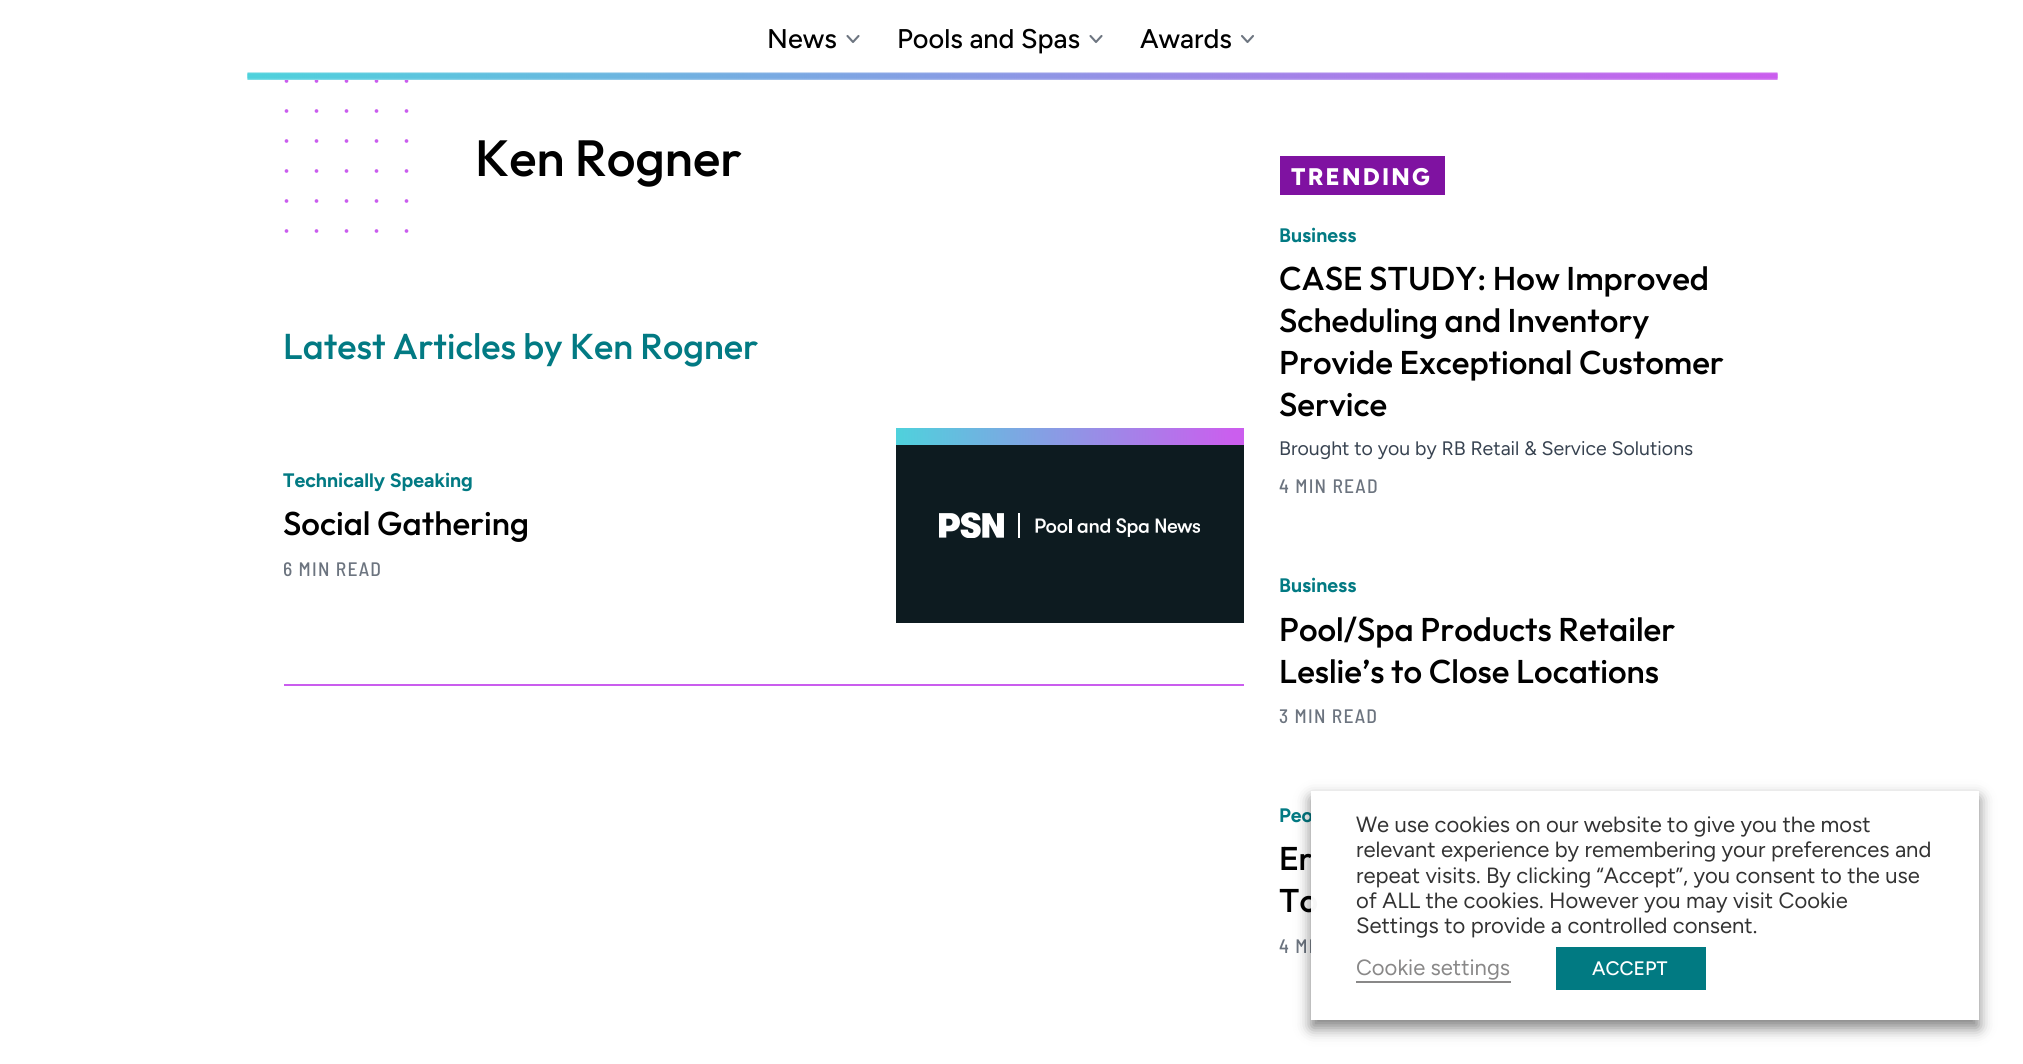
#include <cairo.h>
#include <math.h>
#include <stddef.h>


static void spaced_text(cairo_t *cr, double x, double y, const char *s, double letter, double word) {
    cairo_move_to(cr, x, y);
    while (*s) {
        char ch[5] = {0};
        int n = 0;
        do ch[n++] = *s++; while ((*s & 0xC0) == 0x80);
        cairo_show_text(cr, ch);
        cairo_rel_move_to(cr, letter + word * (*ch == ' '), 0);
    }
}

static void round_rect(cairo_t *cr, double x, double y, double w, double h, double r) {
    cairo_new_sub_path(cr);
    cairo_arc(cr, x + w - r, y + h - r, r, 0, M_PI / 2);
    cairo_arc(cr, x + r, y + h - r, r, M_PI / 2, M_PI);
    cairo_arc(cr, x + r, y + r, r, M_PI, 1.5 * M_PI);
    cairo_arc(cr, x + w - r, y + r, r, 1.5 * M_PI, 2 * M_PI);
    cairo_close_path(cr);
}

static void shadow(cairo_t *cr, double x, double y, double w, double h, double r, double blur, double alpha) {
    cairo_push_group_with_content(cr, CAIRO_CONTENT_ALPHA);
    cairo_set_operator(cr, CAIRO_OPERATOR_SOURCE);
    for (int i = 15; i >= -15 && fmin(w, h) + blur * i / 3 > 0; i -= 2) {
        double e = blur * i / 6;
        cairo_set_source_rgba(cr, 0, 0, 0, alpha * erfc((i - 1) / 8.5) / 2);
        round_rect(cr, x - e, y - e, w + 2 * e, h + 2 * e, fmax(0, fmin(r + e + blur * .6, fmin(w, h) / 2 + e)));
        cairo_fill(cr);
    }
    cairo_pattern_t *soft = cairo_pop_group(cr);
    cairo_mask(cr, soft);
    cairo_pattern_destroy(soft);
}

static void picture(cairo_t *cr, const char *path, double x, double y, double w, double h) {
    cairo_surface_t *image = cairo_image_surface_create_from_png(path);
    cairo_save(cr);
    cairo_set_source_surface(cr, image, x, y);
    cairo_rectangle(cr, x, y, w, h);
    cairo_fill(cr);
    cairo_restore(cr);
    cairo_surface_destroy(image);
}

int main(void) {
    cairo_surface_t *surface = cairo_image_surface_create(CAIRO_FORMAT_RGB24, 2023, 1064);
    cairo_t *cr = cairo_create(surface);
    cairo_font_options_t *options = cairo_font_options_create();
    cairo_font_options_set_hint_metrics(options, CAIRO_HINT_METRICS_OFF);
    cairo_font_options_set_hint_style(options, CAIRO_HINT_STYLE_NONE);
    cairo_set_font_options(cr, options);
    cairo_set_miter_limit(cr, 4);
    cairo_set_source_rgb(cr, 1, 1, 1);
    cairo_paint(cr);
    cairo_new_path(cr);
    cairo_move_to(cr, 286.5, 81);
    cairo_line_to(cr, 286.5, 231.3);
    cairo_set_source_rgb(cr, 0.792, 0.365, 0.933);
    cairo_set_line_width(cr, 3.7);
    cairo_set_line_cap(cr, CAIRO_LINE_CAP_ROUND);
    cairo_set_dash(cr, (double[]){0, 30}, 2, 0);
    cairo_stroke(cr);
    cairo_new_path(cr);
    cairo_move_to(cr, 316.5, 81);
    cairo_line_to(cr, 316.5, 231.3);
    cairo_stroke(cr);
    cairo_new_path(cr);
    cairo_move_to(cr, 346.5, 81);
    cairo_line_to(cr, 346.5, 231.3);
    cairo_stroke(cr);
    cairo_new_path(cr);
    cairo_move_to(cr, 376.5, 81);
    cairo_line_to(cr, 376.5, 231.3);
    cairo_stroke(cr);
    cairo_new_path(cr);
    cairo_move_to(cr, 406.5, 81);
    cairo_line_to(cr, 406.5, 231.3);
    cairo_stroke(cr);
    cairo_set_source_rgb(cr, 1, 1, 1);
    cairo_rectangle(cr, 285, 79, 123, 1);
    cairo_fill(cr);
    cairo_select_font_face(cr, "Figtree Medium", CAIRO_FONT_SLANT_NORMAL, CAIRO_FONT_WEIGHT_NORMAL);
    cairo_set_font_size(cr, 27);
    cairo_set_source_rgb(cr, 0, 0, 0);
    cairo_move_to(cr, 767, 48);
    cairo_show_text(cr, "News");
    cairo_new_path(cr);
    cairo_move_to(cr, 847.5, 36);
    cairo_line_to(cr, 853, 42);
    cairo_line_to(cr, 858.5, 36);
    cairo_set_source_rgb(cr, 0.427, 0.459, 0.502);
    cairo_set_line_width(cr, 2.1);
    cairo_set_line_join(cr, CAIRO_LINE_JOIN_ROUND);
    cairo_set_dash(cr, NULL, 0, 0);
    cairo_stroke(cr);
    cairo_set_source_rgb(cr, 0, 0, 0);
    cairo_move_to(cr, 897, 48);
    cairo_show_text(cr, "Pools and Spas");
    cairo_new_path(cr);
    cairo_move_to(cr, 1090.5, 36);
    cairo_line_to(cr, 1096, 42);
    cairo_line_to(cr, 1101.5, 36);
    cairo_set_source_rgb(cr, 0.427, 0.459, 0.502);
    cairo_stroke(cr);
    cairo_set_source_rgb(cr, 0, 0, 0);
    cairo_move_to(cr, 1140, 48);
    cairo_show_text(cr, "Awards");
    cairo_new_path(cr);
    cairo_move_to(cr, 1242, 36);
    cairo_line_to(cr, 1247.5, 42);
    cairo_line_to(cr, 1253, 36);
    cairo_set_source_rgb(cr, 0.427, 0.459, 0.502);
    cairo_stroke(cr);
    picture(cr, "img1.png", 247, 72, 1531, 8);
    picture(cr, "img2.png", 247, 72, 1531, 8);
    cairo_select_font_face(cr, "Outfit Medium", CAIRO_FONT_SLANT_NORMAL, CAIRO_FONT_WEIGHT_NORMAL);
    cairo_set_font_size(cr, 51);
    cairo_set_source_rgb(cr, 0, 0, 0);
    cairo_move_to(cr, 475, 176);
    cairo_show_text(cr, "Ken Rogner");
    cairo_set_font_size(cr, 36);
    cairo_set_source_rgb(cr, 0.008, 0.478, 0.514);
    cairo_move_to(cr, 283, 359);
    cairo_show_text(cr, "Latest Articles by Ken Rogner");
    cairo_set_source_rgb(cr, 0.792, 0.365, 0.933);
    cairo_rectangle(cr, 284, 684, 960, 2);
    cairo_fill(cr);
    cairo_select_font_face(cr, "Figtree", CAIRO_FONT_SLANT_NORMAL, CAIRO_FONT_WEIGHT_BOLD);
    cairo_set_font_size(cr, 19.5);
    cairo_set_source_rgb(cr, 0.008, 0.478, 0.514);
    cairo_move_to(cr, 283, 487);
    cairo_show_text(cr, "Technically Speaking");
    cairo_select_font_face(cr, "Outfit Medium", CAIRO_FONT_SLANT_NORMAL, CAIRO_FONT_WEIGHT_NORMAL);
    cairo_set_font_size(cr, 33);
    cairo_set_source_rgb(cr, 0, 0, 0);
    cairo_move_to(cr, 283, 535);
    cairo_show_text(cr, "Social Gathering");
    cairo_select_font_face(cr, "Barlow Semi Condensed Medium", CAIRO_FONT_SLANT_NORMAL, CAIRO_FONT_WEIGHT_NORMAL);
    cairo_set_font_size(cr, 19.5);
    cairo_set_source_rgb(cr, 0.424, 0.455, 0.498);
    spaced_text(cr, 283, 576, "6 MIN READ", 1.25, 0);
    picture(cr, "img3.png", 896, 428, 348, 195);
    cairo_set_source_rgb(cr, 0.498, 0.071, 0.631);
    cairo_rectangle(cr, 1280, 156, 165, 39);
    cairo_fill(cr);
    cairo_select_font_face(cr, "Figtree ExtraBold", CAIRO_FONT_SLANT_NORMAL, CAIRO_FONT_WEIGHT_NORMAL);
    cairo_set_font_size(cr, 24);
    cairo_set_source_rgb(cr, 1, 1, 1);
    spaced_text(cr, 1291, 185, "TRENDING", 2.25, 0);
    cairo_select_font_face(cr, "Figtree", CAIRO_FONT_SLANT_NORMAL, CAIRO_FONT_WEIGHT_BOLD);
    cairo_set_font_size(cr, 19.5);
    cairo_set_source_rgb(cr, 0.008, 0.478, 0.514);
    cairo_move_to(cr, 1279, 242);
    cairo_show_text(cr, "Business");
    cairo_select_font_face(cr, "Outfit Medium", CAIRO_FONT_SLANT_NORMAL, CAIRO_FONT_WEIGHT_NORMAL);
    cairo_set_font_size(cr, 33);
    cairo_set_source_rgb(cr, 0, 0, 0);
    cairo_move_to(cr, 1279, 290);
    cairo_show_text(cr, "CASE STUDY: How Improved");
    cairo_move_to(cr, 1279, 332);
    cairo_show_text(cr, "Scheduling and Inventory");
    cairo_move_to(cr, 1279, 374);
    cairo_show_text(cr, "Provide Exceptional Customer");
    cairo_move_to(cr, 1279, 416);
    cairo_show_text(cr, "Service");
    cairo_select_font_face(cr, "Figtree", CAIRO_FONT_SLANT_NORMAL, CAIRO_FONT_WEIGHT_NORMAL);
    cairo_set_font_size(cr, 19.5);
    cairo_set_source_rgb(cr, 0.22, 0.263, 0.318);
    cairo_move_to(cr, 1279, 455);
    cairo_show_text(cr, "Brought to you by RB Retail & Service Solutions");
    cairo_select_font_face(cr, "Barlow Semi Condensed Medium", CAIRO_FONT_SLANT_NORMAL, CAIRO_FONT_WEIGHT_NORMAL);
    cairo_set_source_rgb(cr, 0.424, 0.455, 0.498);
    spaced_text(cr, 1279, 493, "4 MIN READ", 1.25, 0);
    cairo_select_font_face(cr, "Figtree", CAIRO_FONT_SLANT_NORMAL, CAIRO_FONT_WEIGHT_BOLD);
    cairo_set_source_rgb(cr, 0.008, 0.478, 0.514);
    cairo_move_to(cr, 1279, 592);
    cairo_show_text(cr, "Business");
    cairo_select_font_face(cr, "Outfit Medium", CAIRO_FONT_SLANT_NORMAL, CAIRO_FONT_WEIGHT_NORMAL);
    cairo_set_font_size(cr, 33);
    cairo_set_source_rgb(cr, 0, 0, 0);
    cairo_move_to(cr, 1279, 641);
    cairo_show_text(cr, "Pool/Spa Products Retailer");
    cairo_move_to(cr, 1279, 683);
    cairo_show_text(cr, "Leslie’s to Close Locations");
    cairo_select_font_face(cr, "Barlow Semi Condensed Medium", CAIRO_FONT_SLANT_NORMAL, CAIRO_FONT_WEIGHT_NORMAL);
    cairo_set_font_size(cr, 19.5);
    cairo_set_source_rgb(cr, 0.424, 0.455, 0.498);
    spaced_text(cr, 1279, 723, "3 MIN READ", 1.25, 0);
    cairo_select_font_face(cr, "Figtree", CAIRO_FONT_SLANT_NORMAL, CAIRO_FONT_WEIGHT_BOLD);
    cairo_set_source_rgb(cr, 0.008, 0.478, 0.514);
    cairo_move_to(cr, 1279, 822);
    cairo_show_text(cr, "Peo");
    cairo_select_font_face(cr, "Outfit Medium", CAIRO_FONT_SLANT_NORMAL, CAIRO_FONT_WEIGHT_NORMAL);
    cairo_set_font_size(cr, 33);
    cairo_set_source_rgb(cr, 0, 0, 0);
    cairo_move_to(cr, 1279, 870);
    cairo_show_text(cr, "Er");
    cairo_move_to(cr, 1279, 912);
    cairo_show_text(cr, "To");
    cairo_select_font_face(cr, "Barlow Semi Condensed Medium", CAIRO_FONT_SLANT_NORMAL, CAIRO_FONT_WEIGHT_NORMAL);
    cairo_set_font_size(cr, 19.5);
    cairo_set_source_rgb(cr, 0.424, 0.455, 0.498);
    spaced_text(cr, 1279, 953, "4 MI", 1.25, 0);
    cairo_save(cr);
    cairo_set_fill_rule(cr, CAIRO_FILL_RULE_EVEN_ODD);
    cairo_new_path(cr);
    cairo_move_to(cr, 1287, 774);
    cairo_line_to(cr, 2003, 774);
    cairo_line_to(cr, 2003, 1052);
    cairo_line_to(cr, 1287, 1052);
    cairo_close_path(cr);
    cairo_move_to(cr, 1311, 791);
    cairo_line_to(cr, 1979, 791);
    cairo_line_to(cr, 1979, 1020);
    cairo_line_to(cr, 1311, 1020);
    cairo_close_path(cr);
    cairo_clip(cr);
    cairo_set_source_rgb(cr, 0, 0, 0);
    shadow(cr, 1311, 798, 668, 230, 0, 7.5, 0.5);
    cairo_restore(cr);
    cairo_set_source_rgba(cr, 1, 1, 1, 0.97);
    cairo_rectangle(cr, 1311, 791, 668, 229);
    cairo_fill(cr);
    cairo_select_font_face(cr, "Figtree", CAIRO_FONT_SLANT_NORMAL, CAIRO_FONT_WEIGHT_NORMAL);
    cairo_set_font_size(cr, 22);
    cairo_set_source_rgb(cr, 0.2, 0.2, 0.2);
    cairo_move_to(cr, 1356, 832);
    cairo_show_text(cr, "We use cookies on our website to give you the most");
    cairo_move_to(cr, 1356, 857);
    cairo_show_text(cr, "relevant experience by remembering your preferences and");
    cairo_move_to(cr, 1356, 883);
    cairo_show_text(cr, "repeat visits. By clicking “Accept”, you consent to the use");
    cairo_move_to(cr, 1356, 908);
    cairo_show_text(cr, "of ALL the cookies. However you may visit Cookie");
    cairo_move_to(cr, 1356, 933);
    cairo_show_text(cr, "Settings to provide a controlled consent.");
    cairo_set_source_rgb(cr, 0.537, 0.533, 0.533);
    cairo_move_to(cr, 1356, 975);
    cairo_show_text(cr, "Cookie settings");
    cairo_rectangle(cr, 1356, 981, 155, 2);
    cairo_fill(cr);
    cairo_set_source_rgb(cr, 0.004, 0.478, 0.51);
    cairo_rectangle(cr, 1556, 947, 150, 43);
    cairo_fill(cr);
    cairo_select_font_face(cr, "Figtree Medium", CAIRO_FONT_SLANT_NORMAL, CAIRO_FONT_WEIGHT_NORMAL);
    cairo_set_font_size(cr, 19.5);
    cairo_set_source_rgb(cr, 1, 1, 1);
    cairo_move_to(cr, 1592, 975);
    cairo_show_text(cr, "ACCEPT");
    cairo_surface_write_to_png(surface, "page.png");
    cairo_font_options_destroy(options);
    cairo_destroy(cr);
    cairo_surface_destroy(surface);
    return 0;
}
